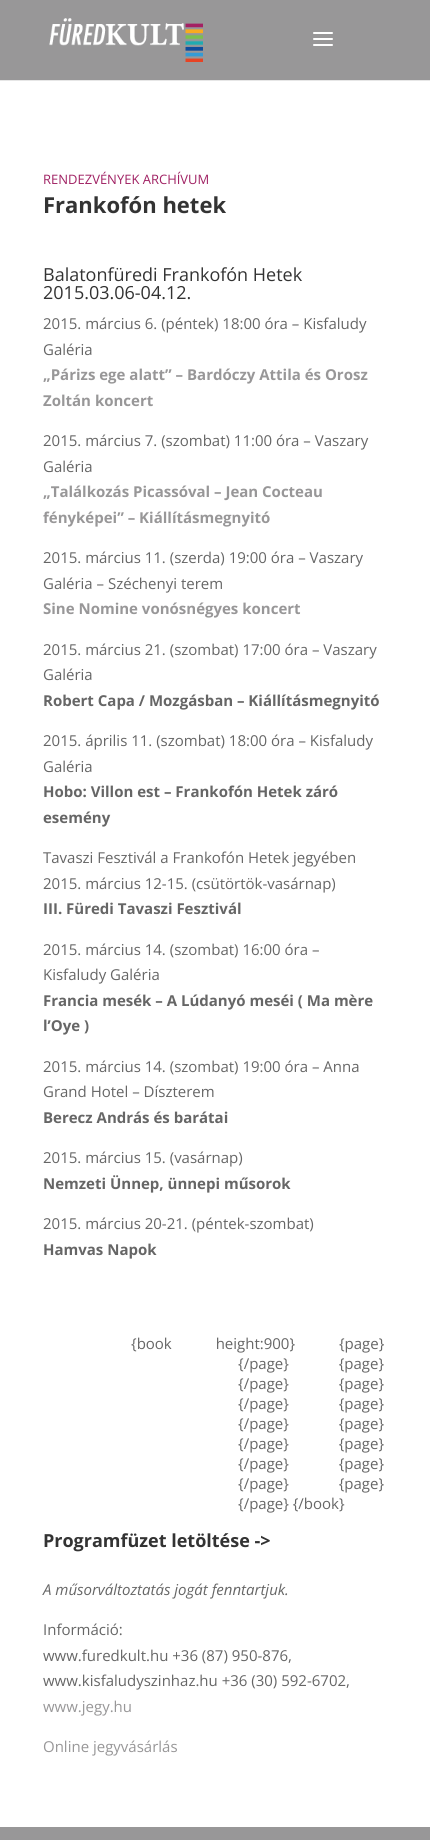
#include <cairo.h>
#include <math.h>
#include <stddef.h>


static void spaced_text(cairo_t *cr, double x, double y, const char *s, double letter, double word) {
    cairo_move_to(cr, x, y);
    while (*s) {
        char ch[5] = {0};
        int n = 0;
        do ch[n++] = *s++; while ((*s & 0xC0) == 0x80);
        cairo_show_text(cr, ch);
        cairo_rel_move_to(cr, letter + word * (*ch == ' '), 0);
    }
}

static void picture(cairo_t *cr, const char *path, double x, double y, double w, double h) {
    cairo_surface_t *image = cairo_image_surface_create_from_png(path);
    cairo_save(cr);
    cairo_set_source_surface(cr, image, x, y);
    cairo_rectangle(cr, x, y, w, h);
    cairo_fill(cr);
    cairo_restore(cr);
    cairo_surface_destroy(image);
}

int main(void) {
    cairo_surface_t *surface = cairo_image_surface_create(CAIRO_FORMAT_RGB24, 430, 1840);
    cairo_t *cr = cairo_create(surface);
    cairo_font_options_t *options = cairo_font_options_create();
    cairo_font_options_set_hint_metrics(options, CAIRO_HINT_METRICS_OFF);
    cairo_font_options_set_hint_style(options, CAIRO_HINT_STYLE_NONE);
    cairo_set_font_options(cr, options);
    cairo_set_miter_limit(cr, 4);
    cairo_set_source_rgb(cr, 1, 1, 1);
    cairo_paint(cr);
    cairo_set_source_rgb(cr, 0.902, 0.902, 0.902);
    cairo_rectangle(cr, 0, 80, 430, 1);
    cairo_fill(cr);
    cairo_set_source_rgb(cr, 0.596, 0.592, 0.596);
    cairo_rectangle(cr, 0, 0, 430, 80);
    cairo_fill(cr);
    picture(cr, "img1.png", 49, 18, 154, 44);
    picture(cr, "img2.png", 313, 32, 20, 14);
    cairo_select_font_face(cr, "Open Sans", CAIRO_FONT_SLANT_NORMAL, CAIRO_FONT_WEIGHT_NORMAL);
    cairo_set_font_size(cr, 13);
    cairo_set_source_rgb(cr, 0.627, 0.129, 0.388);
    cairo_move_to(cr, 43, 184);
    cairo_show_text(cr, "RENDEZVÉNYEK ARCHÍVUM");
    cairo_select_font_face(cr, "Open Sans", CAIRO_FONT_SLANT_NORMAL, CAIRO_FONT_WEIGHT_BOLD);
    cairo_set_font_size(cr, 22);
    cairo_set_source_rgb(cr, 0.2, 0.2, 0.2);
    cairo_move_to(cr, 43, 213);
    cairo_show_text(cr, "Frankofón hetek");
    cairo_select_font_face(cr, "Open Sans", CAIRO_FONT_SLANT_NORMAL, CAIRO_FONT_WEIGHT_NORMAL);
    cairo_set_font_size(cr, 18);
    cairo_move_to(cr, 43, 281);
    cairo_show_text(cr, "Balatonfüredi Frankofón Hetek");
    cairo_move_to(cr, 43, 299);
    cairo_show_text(cr, "2015.03.06-04.12.");
    cairo_set_font_size(cr, 15);
    cairo_set_source_rgb(cr, 0.4, 0.4, 0.4);
    cairo_move_to(cr, 43, 329);
    cairo_show_text(cr, "2015. március 6. (péntek) 18:00 óra – Kisfaludy");
    cairo_move_to(cr, 43, 355);
    cairo_show_text(cr, "Galéria");
    cairo_select_font_face(cr, "Open Sans", CAIRO_FONT_SLANT_NORMAL, CAIRO_FONT_WEIGHT_BOLD);
    cairo_set_source_rgb(cr, 0.596, 0.592, 0.596);
    cairo_move_to(cr, 43, 380);
    cairo_show_text(cr, "„Párizs ege alatt” – Bardóczy Attila és Orosz");
    cairo_move_to(cr, 43, 406);
    cairo_show_text(cr, "Zoltán koncert");
    cairo_select_font_face(cr, "Open Sans", CAIRO_FONT_SLANT_NORMAL, CAIRO_FONT_WEIGHT_NORMAL);
    cairo_set_source_rgb(cr, 0.4, 0.4, 0.4);
    cairo_move_to(cr, 43, 446);
    cairo_show_text(cr, "2015. március 7. (szombat) 11:00 óra – Vaszary");
    cairo_move_to(cr, 43, 472);
    cairo_show_text(cr, "Galéria");
    cairo_select_font_face(cr, "Open Sans", CAIRO_FONT_SLANT_NORMAL, CAIRO_FONT_WEIGHT_BOLD);
    cairo_set_source_rgb(cr, 0.596, 0.592, 0.596);
    cairo_move_to(cr, 43, 497);
    cairo_show_text(cr, "„Találkozás Picassóval – Jean Cocteau");
    cairo_move_to(cr, 43, 523);
    cairo_show_text(cr, "fényképei” – Kiállításmegnyitó");
    cairo_select_font_face(cr, "Open Sans", CAIRO_FONT_SLANT_NORMAL, CAIRO_FONT_WEIGHT_NORMAL);
    cairo_set_source_rgb(cr, 0.4, 0.4, 0.4);
    cairo_move_to(cr, 43, 563);
    cairo_show_text(cr, "2015. március 11. (szerda) 19:00 óra – Vaszary");
    cairo_move_to(cr, 43, 589);
    cairo_show_text(cr, "Galéria – Széchenyi terem");
    cairo_select_font_face(cr, "Open Sans", CAIRO_FONT_SLANT_NORMAL, CAIRO_FONT_WEIGHT_BOLD);
    cairo_set_source_rgb(cr, 0.596, 0.592, 0.596);
    cairo_move_to(cr, 43, 614);
    cairo_show_text(cr, "Sine Nomine vonósnégyes koncert");
    cairo_select_font_face(cr, "Open Sans", CAIRO_FONT_SLANT_NORMAL, CAIRO_FONT_WEIGHT_NORMAL);
    cairo_set_source_rgb(cr, 0.4, 0.4, 0.4);
    cairo_move_to(cr, 43, 655);
    cairo_show_text(cr, "2015. március 21. (szombat) 17:00 óra – Vaszary");
    cairo_move_to(cr, 43, 680);
    cairo_show_text(cr, "Galéria");
    cairo_select_font_face(cr, "Open Sans", CAIRO_FONT_SLANT_NORMAL, CAIRO_FONT_WEIGHT_BOLD);
    cairo_move_to(cr, 43, 706);
    cairo_show_text(cr, "Robert Capa / Mozgásban – Kiállításmegnyitó");
    cairo_select_font_face(cr, "Open Sans", CAIRO_FONT_SLANT_NORMAL, CAIRO_FONT_WEIGHT_NORMAL);
    cairo_move_to(cr, 43, 746);
    cairo_show_text(cr, "2015. április 11. (szombat) 18:00 óra – Kisfaludy");
    cairo_move_to(cr, 43, 772);
    cairo_show_text(cr, "Galéria");
    cairo_select_font_face(cr, "Open Sans", CAIRO_FONT_SLANT_NORMAL, CAIRO_FONT_WEIGHT_BOLD);
    cairo_move_to(cr, 43, 797);
    cairo_show_text(cr, "Hobo: Villon est – Frankofón Hetek záró");
    cairo_move_to(cr, 43, 823);
    cairo_show_text(cr, "esemény");
    cairo_select_font_face(cr, "Open Sans", CAIRO_FONT_SLANT_NORMAL, CAIRO_FONT_WEIGHT_NORMAL);
    cairo_move_to(cr, 43, 863);
    cairo_show_text(cr, "Tavaszi Fesztivál a Frankofón Hetek jegyében");
    cairo_move_to(cr, 43, 889);
    cairo_show_text(cr, "2015. március 12-15. (csütörtök-vasárnap)");
    cairo_select_font_face(cr, "Open Sans", CAIRO_FONT_SLANT_NORMAL, CAIRO_FONT_WEIGHT_BOLD);
    cairo_move_to(cr, 43, 914);
    cairo_show_text(cr, "III. Füredi Tavaszi Fesztivál");
    cairo_select_font_face(cr, "Open Sans", CAIRO_FONT_SLANT_NORMAL, CAIRO_FONT_WEIGHT_NORMAL);
    cairo_move_to(cr, 43, 955);
    cairo_show_text(cr, "2015. március 14. (szombat) 16:00 óra –");
    cairo_move_to(cr, 43, 980);
    cairo_show_text(cr, "Kisfaludy Galéria");
    cairo_select_font_face(cr, "Open Sans", CAIRO_FONT_SLANT_NORMAL, CAIRO_FONT_WEIGHT_BOLD);
    cairo_move_to(cr, 43, 1006);
    cairo_show_text(cr, "Francia mesék – A Lúdanyó meséi ( Ma mère");
    cairo_move_to(cr, 43, 1031);
    cairo_show_text(cr, "l’Oye )");
    cairo_select_font_face(cr, "Open Sans", CAIRO_FONT_SLANT_NORMAL, CAIRO_FONT_WEIGHT_NORMAL);
    cairo_move_to(cr, 43, 1072);
    cairo_show_text(cr, "2015. március 14. (szombat) 19:00 óra – Anna");
    cairo_move_to(cr, 43, 1097);
    cairo_show_text(cr, "Grand Hotel – Díszterem");
    cairo_select_font_face(cr, "Open Sans", CAIRO_FONT_SLANT_NORMAL, CAIRO_FONT_WEIGHT_BOLD);
    cairo_move_to(cr, 43, 1123);
    cairo_show_text(cr, "Berecz András és barátai");
    cairo_select_font_face(cr, "Open Sans", CAIRO_FONT_SLANT_NORMAL, CAIRO_FONT_WEIGHT_NORMAL);
    cairo_move_to(cr, 43, 1163);
    cairo_show_text(cr, "2015. március 15. (vasárnap)");
    cairo_select_font_face(cr, "Open Sans", CAIRO_FONT_SLANT_NORMAL, CAIRO_FONT_WEIGHT_BOLD);
    cairo_move_to(cr, 43, 1189);
    cairo_show_text(cr, "Nemzeti Ünnep, ünnepi műsorok");
    cairo_select_font_face(cr, "Open Sans", CAIRO_FONT_SLANT_NORMAL, CAIRO_FONT_WEIGHT_NORMAL);
    cairo_move_to(cr, 43, 1229);
    cairo_show_text(cr, "2015. március 20-21. (péntek-szombat)");
    cairo_select_font_face(cr, "Open Sans", CAIRO_FONT_SLANT_NORMAL, CAIRO_FONT_WEIGHT_BOLD);
    cairo_move_to(cr, 43, 1255);
    cairo_show_text(cr, "Hamvas Napok");
    cairo_select_font_face(cr, "Open Sans", CAIRO_FONT_SLANT_NORMAL, CAIRO_FONT_WEIGHT_NORMAL);
    spaced_text(cr, 131, 1349, "{book height:900} {page}", 0, 40);
    spaced_text(cr, 238, 1369, "{/page} {page}", 0, 46);
    spaced_text(cr, 238, 1389, "{/page} {page}", 0, 46);
    spaced_text(cr, 238, 1409, "{/page} {page}", 0, 46);
    spaced_text(cr, 238, 1429, "{/page} {page}", 0, 46);
    spaced_text(cr, 238, 1449, "{/page} {page}", 0, 46);
    spaced_text(cr, 238, 1469, "{/page} {page}", 0, 46);
    spaced_text(cr, 238, 1489, "{/page} {page}", 0, 46);
    cairo_move_to(cr, 238, 1509);
    cairo_show_text(cr, "{/page} {/book}");
    cairo_select_font_face(cr, "Open Sans", CAIRO_FONT_SLANT_NORMAL, CAIRO_FONT_WEIGHT_BOLD);
    cairo_set_font_size(cr, 18);
    cairo_set_source_rgb(cr, 0.2, 0.2, 0.2);
    cairo_move_to(cr, 43, 1547);
    cairo_show_text(cr, "Programfüzet letöltése ->");
    cairo_select_font_face(cr, "Open Sans", CAIRO_FONT_SLANT_ITALIC, CAIRO_FONT_WEIGHT_NORMAL);
    cairo_set_font_size(cr, 15);
    cairo_set_source_rgb(cr, 0.4, 0.4, 0.4);
    cairo_move_to(cr, 43, 1595);
    cairo_show_text(cr, "A műsorváltoztatás jogát fenntartjuk.");
    cairo_select_font_face(cr, "Open Sans", CAIRO_FONT_SLANT_NORMAL, CAIRO_FONT_WEIGHT_NORMAL);
    cairo_move_to(cr, 43, 1635);
    cairo_show_text(cr, "Információ:");
    cairo_move_to(cr, 43, 1661);
    cairo_show_text(cr, "www.furedkult.hu +36 (87) 950-876,");
    cairo_move_to(cr, 43, 1686);
    cairo_show_text(cr, "www.kisfaludyszinhaz.hu +36 (30) 592-6702,");
    cairo_set_source_rgb(cr, 0.596, 0.592, 0.596);
    cairo_move_to(cr, 43, 1712);
    cairo_show_text(cr, "www.jegy.hu");
    cairo_move_to(cr, 43, 1752);
    cairo_show_text(cr, "Online jegyvásárlás");
    cairo_rectangle(cr, 0, 1827, 430, 13);
    cairo_fill(cr);
    cairo_surface_write_to_png(surface, "page.png");
    cairo_font_options_destroy(options);
    cairo_destroy(cr);
    cairo_surface_destroy(surface);
    return 0;
}
